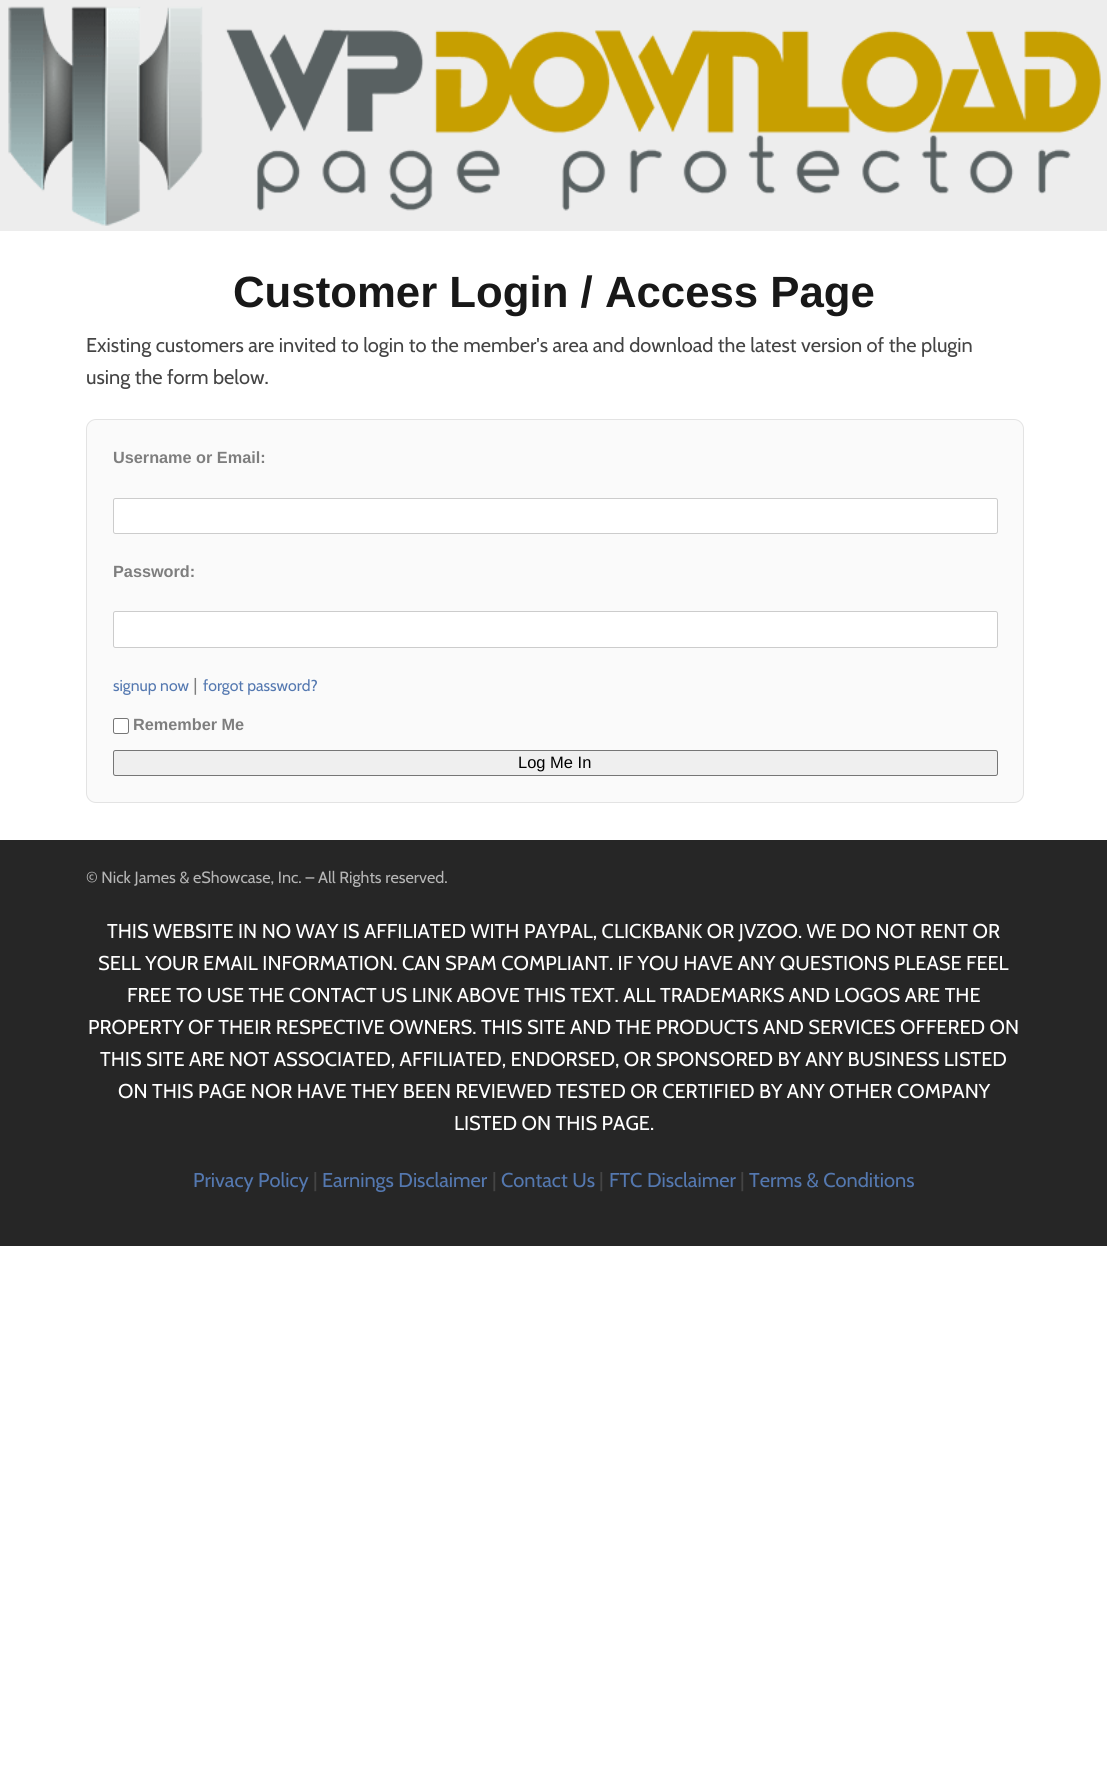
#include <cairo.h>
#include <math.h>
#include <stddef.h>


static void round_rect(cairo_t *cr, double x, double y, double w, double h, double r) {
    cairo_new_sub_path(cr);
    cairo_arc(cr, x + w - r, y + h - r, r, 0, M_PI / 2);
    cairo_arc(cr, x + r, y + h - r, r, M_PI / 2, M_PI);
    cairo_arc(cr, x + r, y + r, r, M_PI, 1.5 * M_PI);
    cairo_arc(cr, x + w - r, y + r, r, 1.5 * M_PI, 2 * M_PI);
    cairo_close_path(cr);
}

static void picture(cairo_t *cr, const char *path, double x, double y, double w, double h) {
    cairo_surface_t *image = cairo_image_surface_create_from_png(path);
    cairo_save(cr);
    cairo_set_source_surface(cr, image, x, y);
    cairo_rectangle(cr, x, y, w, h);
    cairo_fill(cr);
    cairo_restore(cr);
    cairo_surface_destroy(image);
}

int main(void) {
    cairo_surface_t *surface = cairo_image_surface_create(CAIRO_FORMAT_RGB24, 1107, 1792);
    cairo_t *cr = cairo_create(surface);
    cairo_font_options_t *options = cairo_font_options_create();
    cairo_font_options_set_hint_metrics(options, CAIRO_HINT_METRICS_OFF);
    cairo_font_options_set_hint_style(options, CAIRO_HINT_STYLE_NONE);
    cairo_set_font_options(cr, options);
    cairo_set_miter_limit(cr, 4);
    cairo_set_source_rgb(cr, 1, 1, 1);
    cairo_paint(cr);
    cairo_set_source_rgb(cr, 0.929, 0.929, 0.929);
    cairo_rectangle(cr, 0, 0, 1107, 231);
    cairo_fill(cr);
    picture(cr, "img1.png", 8, 6, 1093, 220);
    cairo_select_font_face(cr, "Liberation Sans", CAIRO_FONT_SLANT_NORMAL, CAIRO_FONT_WEIGHT_BOLD);
    cairo_set_font_size(cr, 43.75);
    cairo_set_source_rgb(cr, 0.094, 0.094, 0.094);
    cairo_move_to(cr, 233, 307);
    cairo_show_text(cr, "Customer Login / Access Page");
    cairo_select_font_face(cr, "Cabin", CAIRO_FONT_SLANT_NORMAL, CAIRO_FONT_WEIGHT_NORMAL);
    cairo_set_font_size(cr, 20);
    cairo_set_source_rgb(cr, 0.267, 0.267, 0.267);
    cairo_move_to(cr, 86, 352);
    cairo_show_text(cr, "Existing customers are invited to login to the member's area and download the latest version of the plugin");
    cairo_move_to(cr, 86, 384);
    cairo_show_text(cr, "using the form below.");
    cairo_set_source_rgb(cr, 0.98, 0.98, 0.98);
    round_rect(cr, 86.5, 419.5, 937, 383, 9.5);
    cairo_fill_preserve(cr);
    cairo_set_source_rgb(cr, 0.89, 0.89, 0.89);
    cairo_set_line_width(cr, 1);
    cairo_stroke(cr);
    cairo_select_font_face(cr, "Liberation Sans", CAIRO_FONT_SLANT_NORMAL, CAIRO_FONT_WEIGHT_BOLD);
    cairo_set_font_size(cr, 16.25);
    cairo_set_source_rgb(cr, 0.494, 0.494, 0.494);
    cairo_move_to(cr, 113, 463);
    cairo_show_text(cr, "Username or Email:");
    cairo_set_source_rgb(cr, 1, 1, 1);
    round_rect(cr, 113.5, 498.5, 884, 35, 2);
    cairo_fill_preserve(cr);
    cairo_set_source_rgb(cr, 0.8, 0.8, 0.8);
    cairo_stroke(cr);
    cairo_set_source_rgb(cr, 0.494, 0.494, 0.494);
    cairo_move_to(cr, 113, 577);
    cairo_show_text(cr, "Password:");
    cairo_set_source_rgb(cr, 1, 1, 1);
    round_rect(cr, 113.5, 611.5, 884, 36, 2);
    cairo_fill_preserve(cr);
    cairo_set_source_rgb(cr, 0.8, 0.8, 0.8);
    cairo_stroke(cr);
    cairo_select_font_face(cr, "Cabin", CAIRO_FONT_SLANT_NORMAL, CAIRO_FONT_WEIGHT_NORMAL);
    cairo_set_font_size(cr, 15.75);
    cairo_set_source_rgb(cr, 0.329, 0.471, 0.69);
    cairo_move_to(cr, 113, 691);
    cairo_show_text(cr, "signup now");
    cairo_select_font_face(cr, "Liberation Sans", CAIRO_FONT_SLANT_NORMAL, CAIRO_FONT_WEIGHT_NORMAL);
    cairo_set_font_size(cr, 18);
    cairo_set_source_rgb(cr, 0.494, 0.494, 0.494);
    cairo_move_to(cr, 193, 691);
    cairo_show_text(cr, "|");
    cairo_select_font_face(cr, "Cabin", CAIRO_FONT_SLANT_NORMAL, CAIRO_FONT_WEIGHT_NORMAL);
    cairo_set_font_size(cr, 15.75);
    cairo_set_source_rgb(cr, 0.329, 0.471, 0.69);
    cairo_move_to(cr, 203, 691);
    cairo_show_text(cr, "forgot password?");
    cairo_set_source_rgb(cr, 1, 1, 1);
    round_rect(cr, 113.5, 718.5, 15, 15, 2);
    cairo_fill_preserve(cr);
    cairo_set_source_rgb(cr, 0.463, 0.463, 0.463);
    cairo_stroke(cr);
    cairo_select_font_face(cr, "Liberation Sans", CAIRO_FONT_SLANT_NORMAL, CAIRO_FONT_WEIGHT_BOLD);
    cairo_set_font_size(cr, 16.25);
    cairo_set_source_rgb(cr, 0.494, 0.494, 0.494);
    cairo_move_to(cr, 133, 730);
    cairo_show_text(cr, "Remember Me");
    cairo_set_source_rgb(cr, 0.937, 0.937, 0.937);
    round_rect(cr, 113.5, 750.5, 884, 25, 2);
    cairo_fill_preserve(cr);
    cairo_set_source_rgb(cr, 0.463, 0.463, 0.463);
    cairo_stroke(cr);
    cairo_select_font_face(cr, "Liberation Sans", CAIRO_FONT_SLANT_NORMAL, CAIRO_FONT_WEIGHT_NORMAL);
    cairo_set_font_size(cr, 16.5);
    cairo_set_source_rgb(cr, 0, 0, 0);
    cairo_move_to(cr, 518, 768);
    cairo_show_text(cr, "Log Me In");
    cairo_set_source_rgb(cr, 0.149, 0.149, 0.149);
    cairo_rectangle(cr, 0, 840, 1107, 406);
    cairo_fill(cr);
    cairo_select_font_face(cr, "Cabin", CAIRO_FONT_SLANT_NORMAL, CAIRO_FONT_WEIGHT_NORMAL);
    cairo_set_font_size(cr, 16.25);
    cairo_set_source_rgb(cr, 0.71, 0.71, 0.71);
    cairo_move_to(cr, 86, 883);
    cairo_show_text(cr, "© Nick James & eShowcase, Inc. – All Rights reserved.");
    cairo_set_font_size(cr, 20);
    cairo_set_source_rgb(cr, 1, 1, 1);
    cairo_move_to(cr, 107, 938);
    cairo_show_text(cr, "THIS WEBSITE IN NO WAY IS AFFILIATED WITH PAYPAL, CLICKBANK OR JVZOO. WE DO NOT RENT OR");
    cairo_move_to(cr, 98, 970);
    cairo_show_text(cr, "SELL YOUR EMAIL INFORMATION. CAN SPAM COMPLIANT. IF YOU HAVE ANY QUESTIONS PLEASE FEEL");
    cairo_move_to(cr, 127, 1002);
    cairo_show_text(cr, "FREE TO USE THE CONTACT US LINK ABOVE THIS TEXT. ALL TRADEMARKS AND LOGOS ARE THE");
    cairo_move_to(cr, 88, 1034);
    cairo_show_text(cr, "PROPERTY OF THEIR RESPECTIVE OWNERS. THIS SITE AND THE PRODUCTS AND SERVICES OFFERED ON");
    cairo_move_to(cr, 100, 1066);
    cairo_show_text(cr, "THIS SITE ARE NOT ASSOCIATED, AFFILIATED, ENDORSED, OR SPONSORED BY ANY BUSINESS LISTED");
    cairo_move_to(cr, 118, 1098);
    cairo_show_text(cr, "ON THIS PAGE NOR HAVE THEY BEEN REVIEWED TESTED OR CERTIFIED BY ANY OTHER COMPANY");
    cairo_move_to(cr, 454, 1130);
    cairo_show_text(cr, "LISTED ON THIS PAGE.");
    cairo_set_source_rgb(cr, 0.329, 0.471, 0.69);
    cairo_move_to(cr, 193, 1187);
    cairo_show_text(cr, "Privacy Policy");
    cairo_set_source_rgb(cr, 0.267, 0.267, 0.267);
    cairo_move_to(cr, 313, 1187);
    cairo_show_text(cr, "|");
    cairo_set_source_rgb(cr, 0.329, 0.471, 0.69);
    cairo_move_to(cr, 322, 1187);
    cairo_show_text(cr, "Earnings Disclaimer");
    cairo_set_source_rgb(cr, 0.267, 0.267, 0.267);
    cairo_move_to(cr, 492, 1187);
    cairo_show_text(cr, "|");
    cairo_set_source_rgb(cr, 0.329, 0.471, 0.69);
    cairo_move_to(cr, 501, 1187);
    cairo_show_text(cr, "Contact Us");
    cairo_set_source_rgb(cr, 0.267, 0.267, 0.267);
    cairo_move_to(cr, 599, 1187);
    cairo_show_text(cr, "|");
    cairo_set_source_rgb(cr, 0.329, 0.471, 0.69);
    cairo_move_to(cr, 609, 1187);
    cairo_show_text(cr, "FTC Disclaimer");
    cairo_set_source_rgb(cr, 0.267, 0.267, 0.267);
    cairo_move_to(cr, 740, 1187);
    cairo_show_text(cr, "|");
    cairo_set_source_rgb(cr, 0.329, 0.471, 0.69);
    cairo_move_to(cr, 749, 1187);
    cairo_show_text(cr, "Terms & Conditions");
    cairo_surface_write_to_png(surface, "page.png");
    cairo_font_options_destroy(options);
    cairo_destroy(cr);
    cairo_surface_destroy(surface);
    return 0;
}
